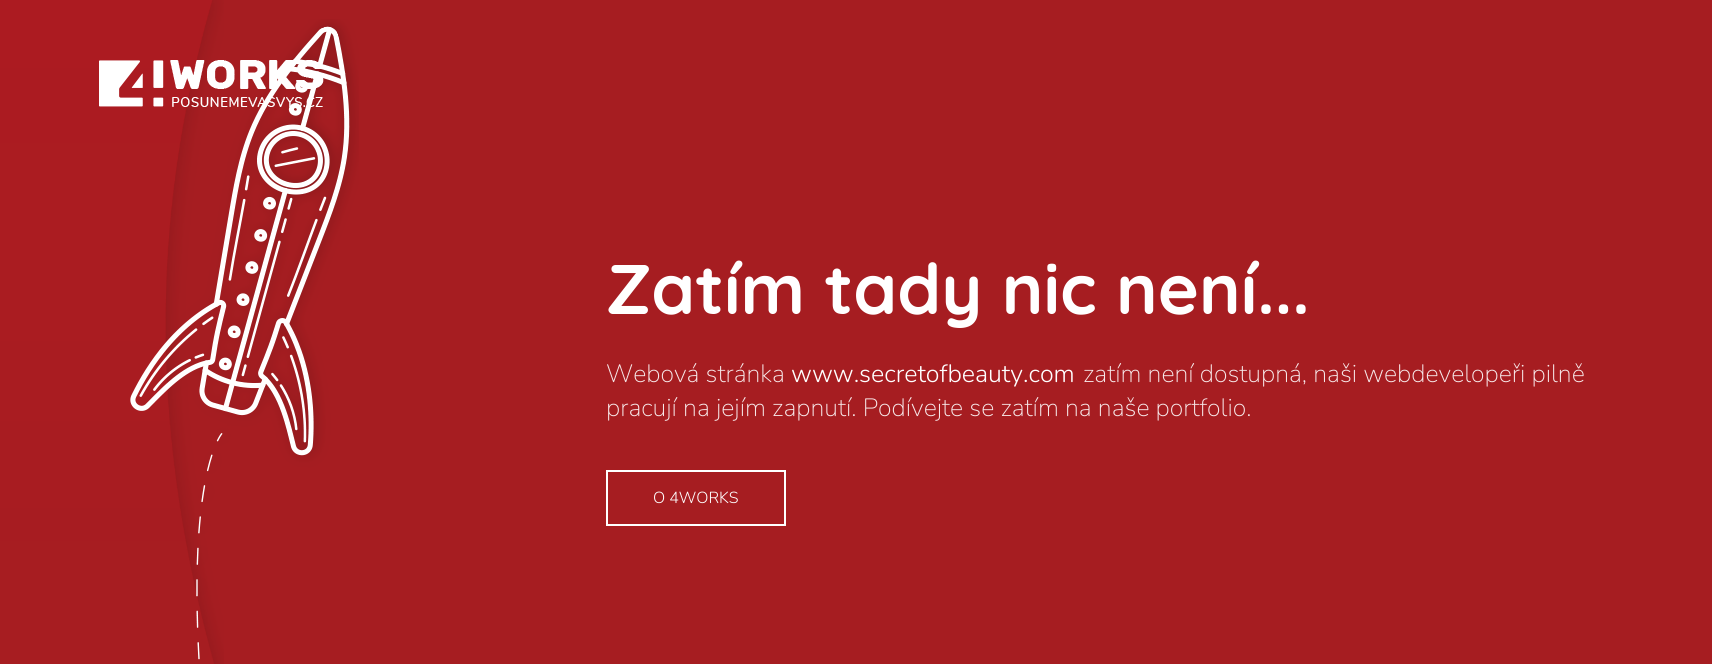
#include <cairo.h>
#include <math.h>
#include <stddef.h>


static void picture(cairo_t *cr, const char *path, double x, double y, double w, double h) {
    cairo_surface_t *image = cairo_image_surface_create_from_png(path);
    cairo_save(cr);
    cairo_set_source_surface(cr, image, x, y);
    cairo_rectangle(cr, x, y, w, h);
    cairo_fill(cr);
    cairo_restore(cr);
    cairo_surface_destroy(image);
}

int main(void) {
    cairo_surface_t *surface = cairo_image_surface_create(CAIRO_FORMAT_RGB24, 1712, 664);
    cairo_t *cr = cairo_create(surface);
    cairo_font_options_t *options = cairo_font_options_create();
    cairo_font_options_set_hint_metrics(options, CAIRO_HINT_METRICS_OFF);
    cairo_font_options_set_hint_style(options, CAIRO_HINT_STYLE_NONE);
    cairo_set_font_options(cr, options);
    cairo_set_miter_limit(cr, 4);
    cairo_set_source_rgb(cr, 0.651, 0.114, 0.129);
    cairo_paint(cr);
    picture(cr, "img1.png", 0, 0, 224, 664);
    picture(cr, "img2.png", 130, 19, 229, 641);
    picture(cr, "img3.png", 99, 60, 225, 47);
    cairo_select_font_face(cr, "Quicksand Light", CAIRO_FONT_SLANT_NORMAL, CAIRO_FONT_WEIGHT_NORMAL);
    cairo_set_font_size(cr, 70);
    cairo_set_source_rgb(cr, 1, 1, 1);
    cairo_move_to(cr, 606, 314);
    cairo_show_text(cr, "Zatím tady nic není...");
    cairo_select_font_face(cr, "Nunito ExtraLight", CAIRO_FONT_SLANT_NORMAL, CAIRO_FONT_WEIGHT_NORMAL);
    cairo_set_font_size(cr, 25);
    cairo_set_source_rgb(cr, 0.965, 0.91, 0.914);
    cairo_move_to(cr, 606, 382);
    cairo_show_text(cr, "Webová stránka");
    cairo_select_font_face(cr, "Nunito Light", CAIRO_FONT_SLANT_NORMAL, CAIRO_FONT_WEIGHT_NORMAL);
    cairo_set_source_rgb(cr, 1, 1, 1);
    cairo_move_to(cr, 791, 382);
    cairo_show_text(cr, "www.secretofbeauty.com");
    cairo_select_font_face(cr, "Nunito ExtraLight", CAIRO_FONT_SLANT_NORMAL, CAIRO_FONT_WEIGHT_NORMAL);
    cairo_set_source_rgb(cr, 0.965, 0.91, 0.914);
    cairo_move_to(cr, 1083, 382);
    cairo_show_text(cr, "zatím není dostupná, naši webdevelopeři pilně");
    cairo_move_to(cr, 606, 416);
    cairo_show_text(cr, "pracují na jejím zapnutí. Podívejte se zatím na naše portfolio.");
    cairo_rectangle(cr, 607, 471, 178, 54);
    cairo_set_source_rgb(cr, 1, 1, 1);
    cairo_stroke(cr);
    cairo_select_font_face(cr, "Nunito Light", CAIRO_FONT_SLANT_NORMAL, CAIRO_FONT_WEIGHT_NORMAL);
    cairo_set_font_size(cr, 16);
    cairo_move_to(cr, 653, 503);
    cairo_show_text(cr, "O 4WORKS");
    cairo_surface_write_to_png(surface, "page.png");
    cairo_font_options_destroy(options);
    cairo_destroy(cr);
    cairo_surface_destroy(surface);
    return 0;
}
